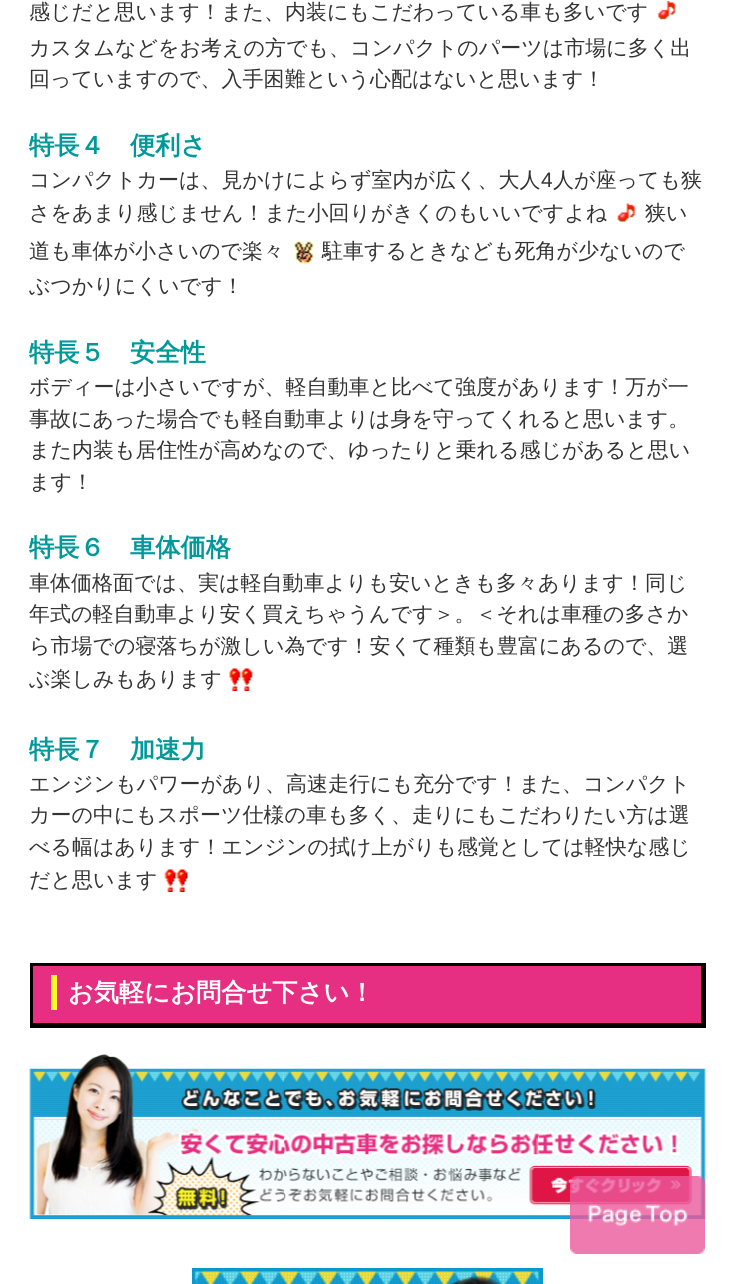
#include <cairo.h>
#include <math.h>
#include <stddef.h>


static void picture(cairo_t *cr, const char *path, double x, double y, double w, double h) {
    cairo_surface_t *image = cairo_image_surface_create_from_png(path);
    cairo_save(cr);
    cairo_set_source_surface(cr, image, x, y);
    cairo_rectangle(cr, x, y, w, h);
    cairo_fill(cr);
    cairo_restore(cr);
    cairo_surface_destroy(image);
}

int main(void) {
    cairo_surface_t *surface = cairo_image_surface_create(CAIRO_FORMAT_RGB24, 734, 1284);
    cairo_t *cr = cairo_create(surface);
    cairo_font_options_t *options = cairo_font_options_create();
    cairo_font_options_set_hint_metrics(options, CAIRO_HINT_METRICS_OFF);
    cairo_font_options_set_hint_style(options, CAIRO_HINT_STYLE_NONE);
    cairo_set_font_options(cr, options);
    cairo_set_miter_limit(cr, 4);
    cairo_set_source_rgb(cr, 1, 1, 1);
    cairo_paint(cr);
    cairo_select_font_face(cr, "WenQuanYi Zen Hei Medium", CAIRO_FONT_SLANT_NORMAL, CAIRO_FONT_WEIGHT_NORMAL);
    cairo_set_font_size(cr, 21);
    cairo_set_source_rgb(cr, 0.2, 0.2, 0.2);
    cairo_move_to(cr, 29, 19);
    cairo_show_text(cr, "感じだと思います！また、内装にもこだわっている車も多いです");
    picture(cr, "img1.png", 657, 1, 19, 19);
    cairo_move_to(cr, 29, 55);
    cairo_show_text(cr, "カスタムなどをお考えの方でも、コンパクトのパーツは市場に多く出");
    cairo_move_to(cr, 29, 86);
    cairo_show_text(cr, "回っていますので、入手困難という心配はないと思います！");
    cairo_select_font_face(cr, "WenQuanYi Zen Hei", CAIRO_FONT_SLANT_NORMAL, CAIRO_FONT_WEIGHT_BOLD);
    cairo_set_font_size(cr, 25.25);
    cairo_set_source_rgb(cr, 0, 0.6, 0.6);
    cairo_move_to(cr, 29, 154);
    cairo_show_text(cr, "特長４　便利さ");
    cairo_select_font_face(cr, "WenQuanYi Zen Hei Medium", CAIRO_FONT_SLANT_NORMAL, CAIRO_FONT_WEIGHT_NORMAL);
    cairo_set_font_size(cr, 21);
    cairo_set_source_rgb(cr, 0.2, 0.2, 0.2);
    cairo_move_to(cr, 29, 187);
    cairo_show_text(cr, "コンパクトカーは、見かけによらず室内が広く、大人");
    cairo_select_font_face(cr, "Liberation Sans", CAIRO_FONT_SLANT_NORMAL, CAIRO_FONT_WEIGHT_NORMAL);
    cairo_move_to(cr, 541, 187);
    cairo_show_text(cr, "4");
    cairo_select_font_face(cr, "WenQuanYi Zen Hei Medium", CAIRO_FONT_SLANT_NORMAL, CAIRO_FONT_WEIGHT_NORMAL);
    cairo_move_to(cr, 553, 187);
    cairo_show_text(cr, "人が座っても狭");
    cairo_move_to(cr, 29, 220);
    cairo_show_text(cr, "さをあまり感じません！また小回りがきくのもいいですよね");
    picture(cr, "img2.png", 617, 203, 19, 19);
    cairo_move_to(cr, 645, 220);
    cairo_show_text(cr, "狭い");
    cairo_move_to(cr, 29, 258);
    cairo_show_text(cr, "道も車体が小さいので楽々");
    picture(cr, "img3.png", 293, 241, 22, 23);
    cairo_move_to(cr, 322, 258);
    cairo_show_text(cr, "駐車するときなども死角が少ないので");
    cairo_move_to(cr, 29, 293);
    cairo_show_text(cr, "ぶつかりにくいです！");
    cairo_select_font_face(cr, "WenQuanYi Zen Hei", CAIRO_FONT_SLANT_NORMAL, CAIRO_FONT_WEIGHT_BOLD);
    cairo_set_font_size(cr, 25.25);
    cairo_set_source_rgb(cr, 0, 0.6, 0.6);
    cairo_move_to(cr, 29, 361);
    cairo_show_text(cr, "特長５　安全性");
    cairo_select_font_face(cr, "WenQuanYi Zen Hei Medium", CAIRO_FONT_SLANT_NORMAL, CAIRO_FONT_WEIGHT_NORMAL);
    cairo_set_font_size(cr, 21);
    cairo_set_source_rgb(cr, 0.2, 0.2, 0.2);
    cairo_move_to(cr, 29, 394);
    cairo_show_text(cr, "ボディーは小さいですが、軽自動車と比べて強度があります！万が一");
    cairo_move_to(cr, 29, 426);
    cairo_show_text(cr, "事故にあった場合でも軽自動車よりは身を守ってくれると思います。");
    cairo_move_to(cr, 29, 457);
    cairo_show_text(cr, "また内装も居住性が高めなので、ゆったりと乗れる感じがあると思い");
    cairo_move_to(cr, 29, 489);
    cairo_show_text(cr, "ます！");
    cairo_select_font_face(cr, "WenQuanYi Zen Hei", CAIRO_FONT_SLANT_NORMAL, CAIRO_FONT_WEIGHT_BOLD);
    cairo_set_font_size(cr, 25.25);
    cairo_set_source_rgb(cr, 0, 0.6, 0.6);
    cairo_move_to(cr, 29, 556);
    cairo_show_text(cr, "特長６　車体価格");
    cairo_select_font_face(cr, "WenQuanYi Zen Hei Medium", CAIRO_FONT_SLANT_NORMAL, CAIRO_FONT_WEIGHT_NORMAL);
    cairo_set_font_size(cr, 21);
    cairo_set_source_rgb(cr, 0.2, 0.2, 0.2);
    cairo_move_to(cr, 29, 590);
    cairo_show_text(cr, "車体価格面では、実は軽自動車よりも安いときも多々あります！同じ");
    cairo_move_to(cr, 29, 621);
    cairo_show_text(cr, "年式の軽自動車より安く買えちゃうんです＞。＜それは車種の多さか");
    cairo_move_to(cr, 29, 653);
    cairo_show_text(cr, "ら市場での寝落ちが激しい為です！安くて種類も豊富にあるので、選");
    cairo_move_to(cr, 29, 686);
    cairo_show_text(cr, "ぶ楽しみもあります");
    picture(cr, "img4.png", 229, 668, 24, 23);
    cairo_select_font_face(cr, "WenQuanYi Zen Hei", CAIRO_FONT_SLANT_NORMAL, CAIRO_FONT_WEIGHT_BOLD);
    cairo_set_font_size(cr, 25.25);
    cairo_set_source_rgb(cr, 0, 0.6, 0.6);
    cairo_move_to(cr, 29, 758);
    cairo_show_text(cr, "特長７　加速力");
    cairo_select_font_face(cr, "WenQuanYi Zen Hei Medium", CAIRO_FONT_SLANT_NORMAL, CAIRO_FONT_WEIGHT_NORMAL);
    cairo_set_font_size(cr, 21);
    cairo_set_source_rgb(cr, 0.2, 0.2, 0.2);
    cairo_move_to(cr, 29, 791);
    cairo_show_text(cr, "エンジンもパワーがあり、高速走行にも充分です！また、コンパクト");
    cairo_move_to(cr, 29, 822);
    cairo_show_text(cr, "カーの中にもスポーツ仕様の車も多く、走りにもこだわりたい方は選");
    cairo_move_to(cr, 29, 854);
    cairo_show_text(cr, "べる幅はあります！エンジンの拭け上がりも感覚としては軽快な感じ");
    cairo_move_to(cr, 29, 887);
    cairo_show_text(cr, "だと思います");
    picture(cr, "img5.png", 164, 869, 24, 23);
    cairo_set_source_rgb(cr, 0.902, 0.184, 0.51);
    cairo_rectangle(cr, 33, 966, 668, 57);
    cairo_fill(cr);
    cairo_set_source_rgb(cr, 0, 0, 0);
    cairo_rectangle(cr, 30, 963, 675, 3);
    cairo_fill(cr);
    cairo_rectangle(cr, 701, 963, 5, 65);
    cairo_fill(cr);
    cairo_rectangle(cr, 30, 1023, 675, 5);
    cairo_fill(cr);
    cairo_rectangle(cr, 30, 963, 3, 65);
    cairo_fill(cr);
    cairo_set_source_rgb(cr, 0.992, 0.961, 0.165);
    cairo_rectangle(cr, 51, 975, 6, 35);
    cairo_fill(cr);
    cairo_select_font_face(cr, "WenQuanYi Zen Hei", CAIRO_FONT_SLANT_NORMAL, CAIRO_FONT_WEIGHT_BOLD);
    cairo_set_font_size(cr, 25.25);
    cairo_set_source_rgb(cr, 1, 1, 1);
    cairo_move_to(cr, 68, 1001);
    cairo_show_text(cr, "お気軽にお問合せ下さい！");
    picture(cr, "img6.png", 29, 1054, 677, 165);
    picture(cr, "img7.png", 192, 1268, 351, 16);
    picture(cr, "img8.png", 570, 1176, 135, 78);
    cairo_surface_write_to_png(surface, "page.png");
    cairo_font_options_destroy(options);
    cairo_destroy(cr);
    cairo_surface_destroy(surface);
    return 0;
}
